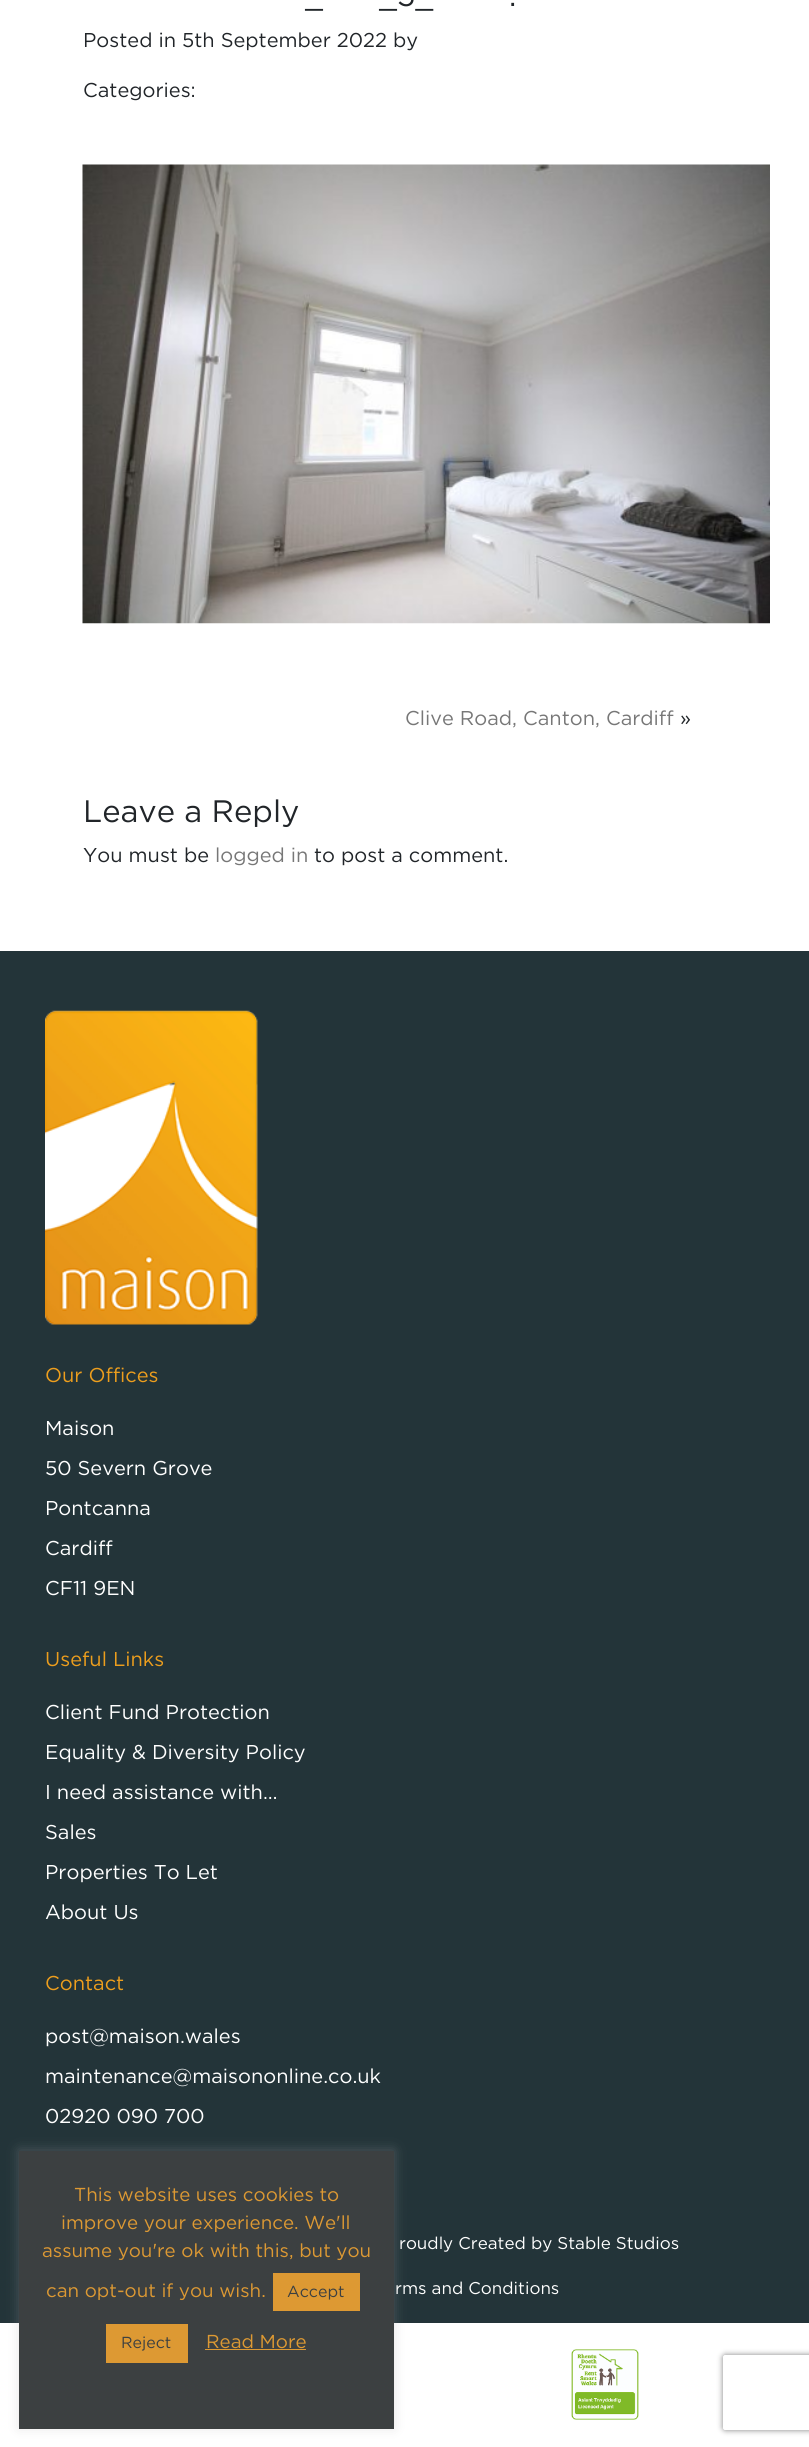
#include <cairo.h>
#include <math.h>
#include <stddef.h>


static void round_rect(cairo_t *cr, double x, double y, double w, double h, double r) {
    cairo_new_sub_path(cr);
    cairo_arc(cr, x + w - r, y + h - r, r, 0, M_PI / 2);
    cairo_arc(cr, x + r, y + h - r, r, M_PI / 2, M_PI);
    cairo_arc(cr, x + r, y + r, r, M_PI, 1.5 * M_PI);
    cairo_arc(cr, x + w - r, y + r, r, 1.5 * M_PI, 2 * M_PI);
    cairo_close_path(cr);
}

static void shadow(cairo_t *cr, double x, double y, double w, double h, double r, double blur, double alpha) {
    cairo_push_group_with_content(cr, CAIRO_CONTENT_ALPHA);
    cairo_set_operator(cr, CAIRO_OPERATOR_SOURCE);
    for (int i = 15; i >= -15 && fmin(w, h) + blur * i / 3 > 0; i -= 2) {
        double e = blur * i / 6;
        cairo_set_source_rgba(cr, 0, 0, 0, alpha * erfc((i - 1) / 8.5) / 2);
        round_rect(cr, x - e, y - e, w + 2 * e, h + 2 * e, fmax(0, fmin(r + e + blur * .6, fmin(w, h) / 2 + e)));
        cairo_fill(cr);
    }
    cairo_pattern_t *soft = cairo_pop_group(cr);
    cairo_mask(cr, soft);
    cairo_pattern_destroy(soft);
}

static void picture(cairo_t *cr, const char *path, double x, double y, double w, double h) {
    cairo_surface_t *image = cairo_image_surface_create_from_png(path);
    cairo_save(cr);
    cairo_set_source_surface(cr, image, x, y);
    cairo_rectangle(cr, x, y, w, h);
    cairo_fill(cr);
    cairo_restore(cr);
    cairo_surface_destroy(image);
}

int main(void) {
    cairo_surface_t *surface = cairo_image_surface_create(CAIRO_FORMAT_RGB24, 809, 2447);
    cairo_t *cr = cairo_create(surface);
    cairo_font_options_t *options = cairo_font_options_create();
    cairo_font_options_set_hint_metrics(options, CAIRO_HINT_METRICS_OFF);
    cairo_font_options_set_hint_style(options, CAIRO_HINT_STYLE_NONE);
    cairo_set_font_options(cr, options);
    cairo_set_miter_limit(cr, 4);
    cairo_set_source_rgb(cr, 1, 1, 1);
    cairo_paint(cr);
    cairo_select_font_face(cr, "Gotham", CAIRO_FONT_SLANT_NORMAL, CAIRO_FONT_WEIGHT_NORMAL);
    cairo_set_font_size(cr, 30);
    cairo_set_source_rgb(cr, 0.129, 0.145, 0.161);
    cairo_move_to(cr, 379, 6);
    cairo_show_text(cr, "_5_");
    cairo_move_to(cr, 509, 6);
    cairo_show_text(cr, ".");
    cairo_move_to(cr, 305, 6);
    cairo_show_text(cr, "_");
    cairo_set_font_size(cr, 20);
    cairo_move_to(cr, 83, 47);
    cairo_show_text(cr, "Posted in 5th September 2022 by");
    cairo_move_to(cr, 83, 97);
    cairo_show_text(cr, "Categories:");
    picture(cr, "img1.png", 82, 164, 688, 460);
    cairo_set_source_rgb(cr, 0.467, 0.467, 0.467);
    cairo_move_to(cr, 405, 725);
    cairo_show_text(cr, "Clive Road, Canton, Cardiff");
    cairo_set_source_rgb(cr, 0.129, 0.145, 0.161);
    cairo_move_to(cr, 680, 725);
    cairo_show_text(cr, "»");
    cairo_set_font_size(cr, 31);
    cairo_move_to(cr, 83, 822);
    cairo_show_text(cr, "Leave a Reply");
    cairo_set_font_size(cr, 20);
    cairo_move_to(cr, 83, 862);
    cairo_show_text(cr, "You must be");
    cairo_set_source_rgb(cr, 0.467, 0.467, 0.467);
    cairo_move_to(cr, 215, 862);
    cairo_show_text(cr, "logged in");
    cairo_set_source_rgb(cr, 0.129, 0.145, 0.161);
    cairo_move_to(cr, 314, 862);
    cairo_show_text(cr, "to post a comment.");
    cairo_set_source_rgb(cr, 0.137, 0.204, 0.224);
    cairo_rectangle(cr, 0, 951, 809, 1372);
    cairo_fill(cr);
    picture(cr, "img2.png", 45, 1010, 213, 315);
    cairo_set_source_rgb(cr, 0.929, 0.62, 0.114);
    cairo_move_to(cr, 45, 1382);
    cairo_show_text(cr, "Our Offices");
    cairo_set_source_rgb(cr, 1, 1, 1);
    cairo_move_to(cr, 45, 1435);
    cairo_show_text(cr, "Maison");
    cairo_move_to(cr, 45, 1475);
    cairo_show_text(cr, "50 Severn Grove");
    cairo_move_to(cr, 45, 1515);
    cairo_show_text(cr, "Pontcanna");
    cairo_move_to(cr, 45, 1555);
    cairo_show_text(cr, "Cardiff");
    cairo_move_to(cr, 45, 1595);
    cairo_show_text(cr, "CF11 9EN");
    cairo_set_source_rgb(cr, 0.929, 0.62, 0.114);
    cairo_move_to(cr, 45, 1666);
    cairo_show_text(cr, "Useful Links");
    cairo_set_source_rgb(cr, 1, 1, 1);
    cairo_move_to(cr, 45, 1719);
    cairo_show_text(cr, "Client Fund Protection");
    cairo_move_to(cr, 45, 1759);
    cairo_show_text(cr, "Equality & Diversity Policy");
    cairo_move_to(cr, 45, 1799);
    cairo_show_text(cr, "I need assistance with…");
    cairo_move_to(cr, 45, 1839);
    cairo_show_text(cr, "Sales");
    cairo_move_to(cr, 45, 1879);
    cairo_show_text(cr, "Properties To Let");
    cairo_move_to(cr, 45, 1919);
    cairo_show_text(cr, "About Us");
    cairo_set_source_rgb(cr, 0.929, 0.62, 0.114);
    cairo_move_to(cr, 45, 1990);
    cairo_show_text(cr, "Contact");
    cairo_set_source_rgb(cr, 1, 1, 1);
    cairo_move_to(cr, 45, 2043);
    cairo_show_text(cr, "post@maison.wales");
    cairo_move_to(cr, 45, 2083);
    cairo_show_text(cr, "maintenance@maisononline.co.uk");
    cairo_move_to(cr, 45, 2123);
    cairo_show_text(cr, "02920 090 700");
    cairo_set_font_size(cr, 17);
    cairo_move_to(cr, 399, 2249);
    cairo_show_text(cr, "roudly Created by Stable Studios");
    cairo_move_to(cr, 395, 2294);
    cairo_show_text(cr, "rms and Conditions");
    cairo_set_source_rgb(cr, 0.675, 0.671, 0.671);
    shadow(cr, 19, 2150, 375, 278, 0, 6, 0.3);
    cairo_set_source_rgb(cr, 0.235, 0.251, 0.255);
    cairo_rectangle(cr, 19, 2151, 375, 278);
    cairo_fill(cr);
    cairo_set_font_size(cr, 18.75);
    cairo_set_source_rgb(cr, 0.867, 0.6, 0.2);
    cairo_move_to(cr, 74, 2201);
    cairo_show_text(cr, "This website uses cookies to");
    cairo_move_to(cr, 61, 2229);
    cairo_show_text(cr, "improve your experience. We'll");
    cairo_move_to(cr, 42, 2257);
    cairo_show_text(cr, "assume you're ok with this, but you");
    cairo_move_to(cr, 46, 2297);
    cairo_show_text(cr, "can opt-out if you wish.");
    cairo_rectangle(cr, 273, 2273, 87, 38);
    cairo_fill(cr);
    cairo_set_font_size(cr, 16);
    cairo_set_source_rgb(cr, 0.235, 0.251, 0.255);
    cairo_move_to(cr, 287, 2297);
    cairo_show_text(cr, "Accept");
    cairo_set_source_rgb(cr, 0.867, 0.6, 0.2);
    cairo_rectangle(cr, 106, 2324, 82, 39);
    cairo_fill(cr);
    cairo_set_source_rgb(cr, 0.235, 0.251, 0.255);
    cairo_move_to(cr, 121, 2348);
    cairo_show_text(cr, "Reject");
    cairo_set_font_size(cr, 18.75);
    cairo_set_source_rgb(cr, 0.867, 0.6, 0.2);
    cairo_move_to(cr, 206, 2348);
    cairo_show_text(cr, "Read More");
    cairo_rectangle(cr, 205, 2349, 101, 1);
    cairo_fill(cr);
    picture(cr, "img3.png", 571, 2349, 68, 71);
    cairo_save(cr);
    cairo_set_fill_rule(cr, CAIRO_FILL_RULE_EVEN_ODD);
    cairo_new_path(cr);
    cairo_move_to(cr, 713, 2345);
    cairo_line_to(cr, 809, 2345);
    cairo_line_to(cr, 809, 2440);
    cairo_line_to(cr, 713, 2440);
    cairo_close_path(cr);
    cairo_move_to(cr, 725.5, 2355);
    cairo_line_to(cr, 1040.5, 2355);
    cairo_curve_to(cr, 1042, 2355, 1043, 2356, 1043, 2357.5);
    cairo_line_to(cr, 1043, 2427.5);
    cairo_curve_to(cr, 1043, 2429, 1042, 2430, 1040.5, 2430);
    cairo_line_to(cr, 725.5, 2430);
    cairo_curve_to(cr, 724, 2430, 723, 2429, 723, 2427.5);
    cairo_line_to(cr, 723, 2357.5);
    cairo_curve_to(cr, 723, 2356, 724, 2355, 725.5, 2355);
    cairo_close_path(cr);
    cairo_clip(cr);
    cairo_set_source_rgb(cr, 0.502, 0.502, 0.502);
    shadow(cr, 723, 2355, 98, 75, 2.5, 3, 1);
    cairo_restore(cr);
    cairo_surface_write_to_png(surface, "page.png");
    cairo_font_options_destroy(options);
    cairo_destroy(cr);
    cairo_surface_destroy(surface);
    return 0;
}
